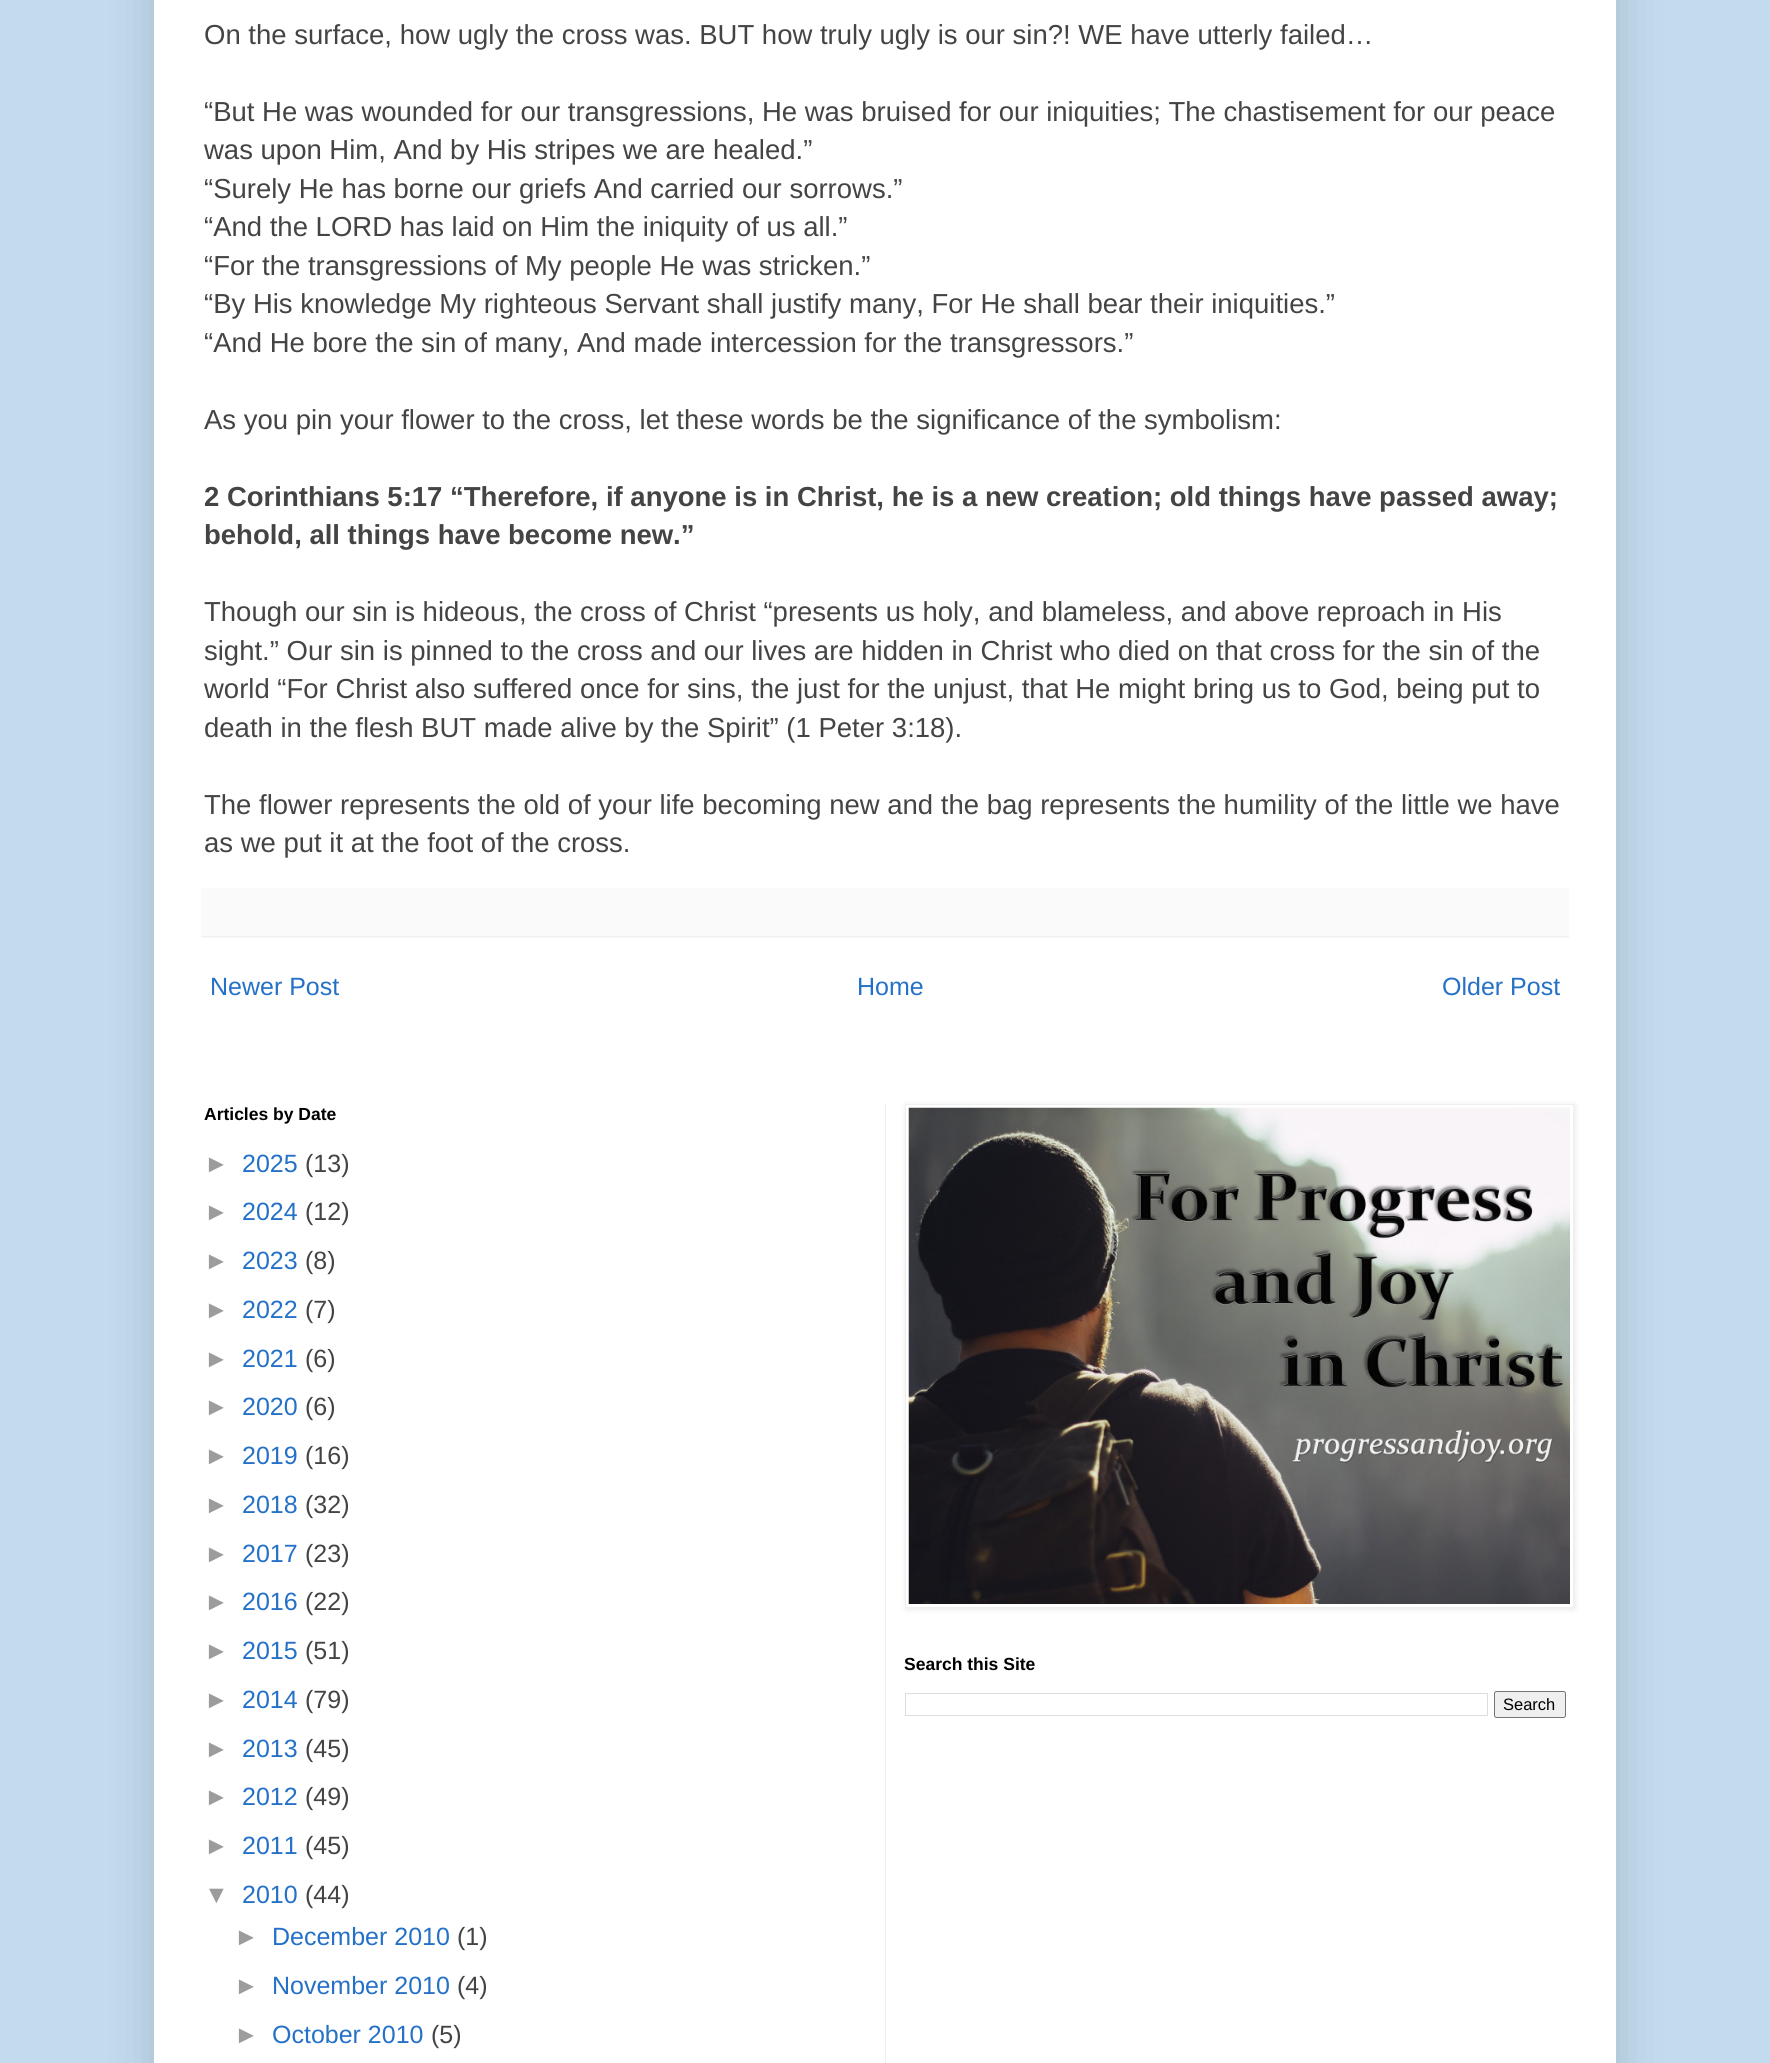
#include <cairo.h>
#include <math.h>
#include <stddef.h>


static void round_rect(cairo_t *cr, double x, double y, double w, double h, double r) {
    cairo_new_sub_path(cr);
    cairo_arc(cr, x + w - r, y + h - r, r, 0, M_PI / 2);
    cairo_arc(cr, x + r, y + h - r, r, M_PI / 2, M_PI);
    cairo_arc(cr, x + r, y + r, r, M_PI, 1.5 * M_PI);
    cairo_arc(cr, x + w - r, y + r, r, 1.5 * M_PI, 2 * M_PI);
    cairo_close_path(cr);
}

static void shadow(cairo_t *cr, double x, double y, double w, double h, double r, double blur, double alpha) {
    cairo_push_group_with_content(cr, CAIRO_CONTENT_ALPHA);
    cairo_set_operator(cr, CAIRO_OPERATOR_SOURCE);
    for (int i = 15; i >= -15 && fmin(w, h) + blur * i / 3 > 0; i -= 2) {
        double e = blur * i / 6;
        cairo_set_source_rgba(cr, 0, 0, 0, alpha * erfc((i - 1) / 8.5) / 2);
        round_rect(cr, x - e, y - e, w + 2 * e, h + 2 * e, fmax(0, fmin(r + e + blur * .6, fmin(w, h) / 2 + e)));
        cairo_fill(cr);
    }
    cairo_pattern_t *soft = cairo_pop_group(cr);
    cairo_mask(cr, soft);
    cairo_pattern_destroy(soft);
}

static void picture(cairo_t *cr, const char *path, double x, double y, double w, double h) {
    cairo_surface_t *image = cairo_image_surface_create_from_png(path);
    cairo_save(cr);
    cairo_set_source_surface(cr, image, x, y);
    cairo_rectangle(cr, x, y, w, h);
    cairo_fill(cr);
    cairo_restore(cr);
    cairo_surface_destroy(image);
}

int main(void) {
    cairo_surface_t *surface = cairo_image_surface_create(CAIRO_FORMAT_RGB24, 1770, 2063);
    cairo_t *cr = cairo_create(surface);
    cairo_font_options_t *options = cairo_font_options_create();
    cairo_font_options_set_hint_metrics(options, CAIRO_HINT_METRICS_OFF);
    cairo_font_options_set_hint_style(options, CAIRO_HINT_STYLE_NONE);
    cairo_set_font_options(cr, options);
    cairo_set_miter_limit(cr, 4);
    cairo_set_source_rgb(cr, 0.765, 0.859, 0.933);
    cairo_paint(cr);
    cairo_set_source_rgb(cr, 0, 0, 0);
    shadow(cr, 154, -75, 1462, 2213, 0, 25, 0.15);
    cairo_set_source_rgb(cr, 1, 1, 1);
    cairo_rectangle(cr, 154, 0, 1462, 2063);
    cairo_fill(cr);
    cairo_select_font_face(cr, "Liberation Sans", CAIRO_FONT_SLANT_NORMAL, CAIRO_FONT_WEIGHT_NORMAL);
    cairo_set_font_size(cr, 27.5);
    cairo_set_source_rgb(cr, 0.267, 0.267, 0.267);
    cairo_move_to(cr, 204, 44);
    cairo_show_text(cr, "On the surface, how ugly the cross was. BUT how truly ugly is our sin?! WE have utterly failed…");
    cairo_move_to(cr, 204, 121);
    cairo_show_text(cr, "“But He was wounded for our transgressions, He was bruised for our iniquities; The chastisement for our peace");
    cairo_move_to(cr, 204, 159);
    cairo_show_text(cr, "was upon Him, And by His stripes we are healed.”");
    cairo_move_to(cr, 204, 198);
    cairo_show_text(cr, "“Surely He has borne our griefs And carried our sorrows.”");
    cairo_move_to(cr, 204, 236);
    cairo_show_text(cr, "“And the LORD has laid on Him the iniquity of us all.”");
    cairo_move_to(cr, 204, 275);
    cairo_show_text(cr, "“For the transgressions of My people He was stricken.”");
    cairo_move_to(cr, 204, 313);
    cairo_show_text(cr, "“By His knowledge My righteous Servant shall justify many, For He shall bear their iniquities.”");
    cairo_move_to(cr, 204, 352);
    cairo_show_text(cr, "“And He bore the sin of many, And made intercession for the transgressors.”");
    cairo_move_to(cr, 204, 429);
    cairo_show_text(cr, "As you pin your flower to the cross, let these words be the significance of the symbolism:");
    cairo_select_font_face(cr, "Liberation Sans", CAIRO_FONT_SLANT_NORMAL, CAIRO_FONT_WEIGHT_BOLD);
    cairo_move_to(cr, 204, 506);
    cairo_show_text(cr, "2 Corinthians 5:17 “Therefore, if anyone is in Christ, he is a new creation; old things have passed away;");
    cairo_move_to(cr, 204, 544);
    cairo_show_text(cr, "behold, all things have become new.”");
    cairo_select_font_face(cr, "Liberation Sans", CAIRO_FONT_SLANT_NORMAL, CAIRO_FONT_WEIGHT_NORMAL);
    cairo_move_to(cr, 204, 621);
    cairo_show_text(cr, "Though our sin is hideous, the cross of Christ “presents us holy, and blameless, and above reproach in His");
    cairo_move_to(cr, 204, 660);
    cairo_show_text(cr, "sight.” Our sin is pinned to the cross and our lives are hidden in Christ who died on that cross for the sin of the");
    cairo_move_to(cr, 204, 698);
    cairo_show_text(cr, "world “For Christ also suffered once for sins, the just for the unjust, that He might bring us to God, being put to");
    cairo_move_to(cr, 204, 737);
    cairo_show_text(cr, "death in the flesh BUT made alive by the Spirit” (1 Peter 3:18).");
    cairo_move_to(cr, 204, 814);
    cairo_show_text(cr, "The flower represents the old of your life becoming new and the bag represents the humility of the little we have");
    cairo_move_to(cr, 204, 852);
    cairo_show_text(cr, "as we put it at the foot of the cross.");
    cairo_set_source_rgb(cr, 0.98, 0.98, 0.98);
    cairo_rectangle(cr, 201, 888, 1368, 50);
    cairo_fill(cr);
    cairo_set_source_rgb(cr, 0.937, 0.937, 0.937);
    cairo_rectangle(cr, 201, 936, 1368, 1);
    cairo_fill(cr);
    cairo_set_font_size(cr, 25);
    cairo_set_source_rgb(cr, 0.141, 0.443, 0.78);
    cairo_move_to(cr, 210, 995);
    cairo_show_text(cr, "Newer Post");
    cairo_move_to(cr, 857, 995);
    cairo_show_text(cr, "Home");
    cairo_move_to(cr, 1442, 995);
    cairo_show_text(cr, "Older Post");
    cairo_select_font_face(cr, "Liberation Sans", CAIRO_FONT_SLANT_NORMAL, CAIRO_FONT_WEIGHT_BOLD);
    cairo_set_font_size(cr, 17.5);
    cairo_set_source_rgb(cr, 0, 0, 0);
    cairo_move_to(cr, 204, 1120);
    cairo_show_text(cr, "Articles by Date");
    cairo_select_font_face(cr, "Liberation Sans", CAIRO_FONT_SLANT_NORMAL, CAIRO_FONT_WEIGHT_NORMAL);
    cairo_set_font_size(cr, 25);
    cairo_set_source_rgb(cr, 0.612, 0.612, 0.612);
    cairo_move_to(cr, 204, 1172);
    cairo_show_text(cr, "►");
    cairo_set_source_rgb(cr, 0.141, 0.443, 0.78);
    cairo_move_to(cr, 242, 1172);
    cairo_show_text(cr, "2025");
    cairo_set_source_rgb(cr, 0.267, 0.267, 0.267);
    cairo_move_to(cr, 305, 1172);
    cairo_show_text(cr, "(13)");
    cairo_set_source_rgb(cr, 0.612, 0.612, 0.612);
    cairo_move_to(cr, 204, 1220);
    cairo_show_text(cr, "►");
    cairo_set_source_rgb(cr, 0.141, 0.443, 0.78);
    cairo_move_to(cr, 242, 1220);
    cairo_show_text(cr, "2024");
    cairo_set_source_rgb(cr, 0.267, 0.267, 0.267);
    cairo_move_to(cr, 305, 1220);
    cairo_show_text(cr, "(12)");
    cairo_set_source_rgb(cr, 0.612, 0.612, 0.612);
    cairo_move_to(cr, 204, 1269);
    cairo_show_text(cr, "►");
    cairo_set_source_rgb(cr, 0.141, 0.443, 0.78);
    cairo_move_to(cr, 242, 1269);
    cairo_show_text(cr, "2023");
    cairo_set_source_rgb(cr, 0.267, 0.267, 0.267);
    cairo_move_to(cr, 305, 1269);
    cairo_show_text(cr, "(8)");
    cairo_set_source_rgb(cr, 0.612, 0.612, 0.612);
    cairo_move_to(cr, 204, 1318);
    cairo_show_text(cr, "►");
    cairo_set_source_rgb(cr, 0.141, 0.443, 0.78);
    cairo_move_to(cr, 242, 1318);
    cairo_show_text(cr, "2022");
    cairo_set_source_rgb(cr, 0.267, 0.267, 0.267);
    cairo_move_to(cr, 305, 1318);
    cairo_show_text(cr, "(7)");
    cairo_set_source_rgb(cr, 0.612, 0.612, 0.612);
    cairo_move_to(cr, 204, 1367);
    cairo_show_text(cr, "►");
    cairo_set_source_rgb(cr, 0.141, 0.443, 0.78);
    cairo_move_to(cr, 242, 1367);
    cairo_show_text(cr, "2021");
    cairo_set_source_rgb(cr, 0.267, 0.267, 0.267);
    cairo_move_to(cr, 305, 1367);
    cairo_show_text(cr, "(6)");
    cairo_set_source_rgb(cr, 0.612, 0.612, 0.612);
    cairo_move_to(cr, 204, 1415);
    cairo_show_text(cr, "►");
    cairo_set_source_rgb(cr, 0.141, 0.443, 0.78);
    cairo_move_to(cr, 242, 1415);
    cairo_show_text(cr, "2020");
    cairo_set_source_rgb(cr, 0.267, 0.267, 0.267);
    cairo_move_to(cr, 305, 1415);
    cairo_show_text(cr, "(6)");
    cairo_set_source_rgb(cr, 0.612, 0.612, 0.612);
    cairo_move_to(cr, 204, 1464);
    cairo_show_text(cr, "►");
    cairo_set_source_rgb(cr, 0.141, 0.443, 0.78);
    cairo_move_to(cr, 242, 1464);
    cairo_show_text(cr, "2019");
    cairo_set_source_rgb(cr, 0.267, 0.267, 0.267);
    cairo_move_to(cr, 305, 1464);
    cairo_show_text(cr, "(16)");
    cairo_set_source_rgb(cr, 0.612, 0.612, 0.612);
    cairo_move_to(cr, 204, 1513);
    cairo_show_text(cr, "►");
    cairo_set_source_rgb(cr, 0.141, 0.443, 0.78);
    cairo_move_to(cr, 242, 1513);
    cairo_show_text(cr, "2018");
    cairo_set_source_rgb(cr, 0.267, 0.267, 0.267);
    cairo_move_to(cr, 305, 1513);
    cairo_show_text(cr, "(32)");
    cairo_set_source_rgb(cr, 0.612, 0.612, 0.612);
    cairo_move_to(cr, 204, 1562);
    cairo_show_text(cr, "►");
    cairo_set_source_rgb(cr, 0.141, 0.443, 0.78);
    cairo_move_to(cr, 242, 1562);
    cairo_show_text(cr, "2017");
    cairo_set_source_rgb(cr, 0.267, 0.267, 0.267);
    cairo_move_to(cr, 305, 1562);
    cairo_show_text(cr, "(23)");
    cairo_set_source_rgb(cr, 0.612, 0.612, 0.612);
    cairo_move_to(cr, 204, 1610);
    cairo_show_text(cr, "►");
    cairo_set_source_rgb(cr, 0.141, 0.443, 0.78);
    cairo_move_to(cr, 242, 1610);
    cairo_show_text(cr, "2016");
    cairo_set_source_rgb(cr, 0.267, 0.267, 0.267);
    cairo_move_to(cr, 305, 1610);
    cairo_show_text(cr, "(22)");
    cairo_set_source_rgb(cr, 0.612, 0.612, 0.612);
    cairo_move_to(cr, 204, 1659);
    cairo_show_text(cr, "►");
    cairo_set_source_rgb(cr, 0.141, 0.443, 0.78);
    cairo_move_to(cr, 242, 1659);
    cairo_show_text(cr, "2015");
    cairo_set_source_rgb(cr, 0.267, 0.267, 0.267);
    cairo_move_to(cr, 305, 1659);
    cairo_show_text(cr, "(51)");
    cairo_set_source_rgb(cr, 0.612, 0.612, 0.612);
    cairo_move_to(cr, 204, 1708);
    cairo_show_text(cr, "►");
    cairo_set_source_rgb(cr, 0.141, 0.443, 0.78);
    cairo_move_to(cr, 242, 1708);
    cairo_show_text(cr, "2014");
    cairo_set_source_rgb(cr, 0.267, 0.267, 0.267);
    cairo_move_to(cr, 305, 1708);
    cairo_show_text(cr, "(79)");
    cairo_set_source_rgb(cr, 0.612, 0.612, 0.612);
    cairo_move_to(cr, 204, 1757);
    cairo_show_text(cr, "►");
    cairo_set_source_rgb(cr, 0.141, 0.443, 0.78);
    cairo_move_to(cr, 242, 1757);
    cairo_show_text(cr, "2013");
    cairo_set_source_rgb(cr, 0.267, 0.267, 0.267);
    cairo_move_to(cr, 305, 1757);
    cairo_show_text(cr, "(45)");
    cairo_set_source_rgb(cr, 0.612, 0.612, 0.612);
    cairo_move_to(cr, 204, 1805);
    cairo_show_text(cr, "►");
    cairo_set_source_rgb(cr, 0.141, 0.443, 0.78);
    cairo_move_to(cr, 242, 1805);
    cairo_show_text(cr, "2012");
    cairo_set_source_rgb(cr, 0.267, 0.267, 0.267);
    cairo_move_to(cr, 305, 1805);
    cairo_show_text(cr, "(49)");
    cairo_set_source_rgb(cr, 0.612, 0.612, 0.612);
    cairo_move_to(cr, 204, 1854);
    cairo_show_text(cr, "►");
    cairo_set_source_rgb(cr, 0.141, 0.443, 0.78);
    cairo_move_to(cr, 242, 1854);
    cairo_show_text(cr, "2011");
    cairo_set_source_rgb(cr, 0.267, 0.267, 0.267);
    cairo_move_to(cr, 305, 1854);
    cairo_show_text(cr, "(45)");
    cairo_set_source_rgb(cr, 0.612, 0.612, 0.612);
    cairo_move_to(cr, 204, 1903);
    cairo_show_text(cr, "▼");
    cairo_set_source_rgb(cr, 0.141, 0.443, 0.78);
    cairo_move_to(cr, 242, 1903);
    cairo_show_text(cr, "2010");
    cairo_set_source_rgb(cr, 0.267, 0.267, 0.267);
    cairo_move_to(cr, 305, 1903);
    cairo_show_text(cr, "(44)");
    cairo_set_source_rgb(cr, 0.612, 0.612, 0.612);
    cairo_move_to(cr, 234, 1945);
    cairo_show_text(cr, "►");
    cairo_set_source_rgb(cr, 0.141, 0.443, 0.78);
    cairo_move_to(cr, 272, 1945);
    cairo_show_text(cr, "December 2010");
    cairo_set_source_rgb(cr, 0.267, 0.267, 0.267);
    cairo_move_to(cr, 457, 1945);
    cairo_show_text(cr, "(1)");
    cairo_set_source_rgb(cr, 0.612, 0.612, 0.612);
    cairo_move_to(cr, 234, 1994);
    cairo_show_text(cr, "►");
    cairo_set_source_rgb(cr, 0.141, 0.443, 0.78);
    cairo_move_to(cr, 272, 1994);
    cairo_show_text(cr, "November 2010");
    cairo_set_source_rgb(cr, 0.267, 0.267, 0.267);
    cairo_move_to(cr, 457, 1994);
    cairo_show_text(cr, "(4)");
    cairo_set_source_rgb(cr, 0.612, 0.612, 0.612);
    cairo_move_to(cr, 234, 2043);
    cairo_show_text(cr, "►");
    cairo_set_source_rgb(cr, 0.141, 0.443, 0.78);
    cairo_move_to(cr, 272, 2043);
    cairo_show_text(cr, "October 2010");
    cairo_set_source_rgb(cr, 0.267, 0.267, 0.267);
    cairo_move_to(cr, 431, 2043);
    cairo_show_text(cr, "(5)");
    cairo_set_source_rgb(cr, 0.937, 0.937, 0.937);
    cairo_rectangle(cr, 885, 1104, 1, 959);
    cairo_fill(cr);
    cairo_set_source_rgb(cr, 0, 0, 0);
    shadow(cr, 906, 1105, 669, 504, 0, 3, 0.1);
    cairo_set_source_rgb(cr, 1, 1, 1);
    cairo_rectangle(cr, 905.5, 1104.5, 668, 503);
    cairo_fill_preserve(cr);
    cairo_set_source_rgb(cr, 0.937, 0.937, 0.937);
    cairo_set_line_width(cr, 1);
    cairo_stroke(cr);
    picture(cr, "img1.png", 908, 1107, 662, 497);
    cairo_select_font_face(cr, "Liberation Sans", CAIRO_FONT_SLANT_NORMAL, CAIRO_FONT_WEIGHT_BOLD);
    cairo_set_font_size(cr, 17.5);
    cairo_set_source_rgb(cr, 0, 0, 0);
    cairo_move_to(cr, 904, 1670);
    cairo_show_text(cr, "Search this Site");
    cairo_rectangle(cr, 905.5, 1693.5, 582, 22);
    cairo_set_source_rgb(cr, 0.867, 0.867, 0.867);
    cairo_stroke(cr);
    cairo_set_source_rgb(cr, 0.937, 0.937, 0.937);
    round_rect(cr, 1494.5, 1691.5, 71, 26, 2);
    cairo_fill_preserve(cr);
    cairo_set_source_rgb(cr, 0.463, 0.463, 0.463);
    cairo_stroke(cr);
    cairo_select_font_face(cr, "Liberation Sans", CAIRO_FONT_SLANT_NORMAL, CAIRO_FONT_WEIGHT_NORMAL);
    cairo_set_font_size(cr, 16.5);
    cairo_set_source_rgb(cr, 0, 0, 0);
    cairo_move_to(cr, 1503, 1710);
    cairo_show_text(cr, "Search");
    cairo_surface_write_to_png(surface, "page.png");
    cairo_font_options_destroy(options);
    cairo_destroy(cr);
    cairo_surface_destroy(surface);
    return 0;
}
